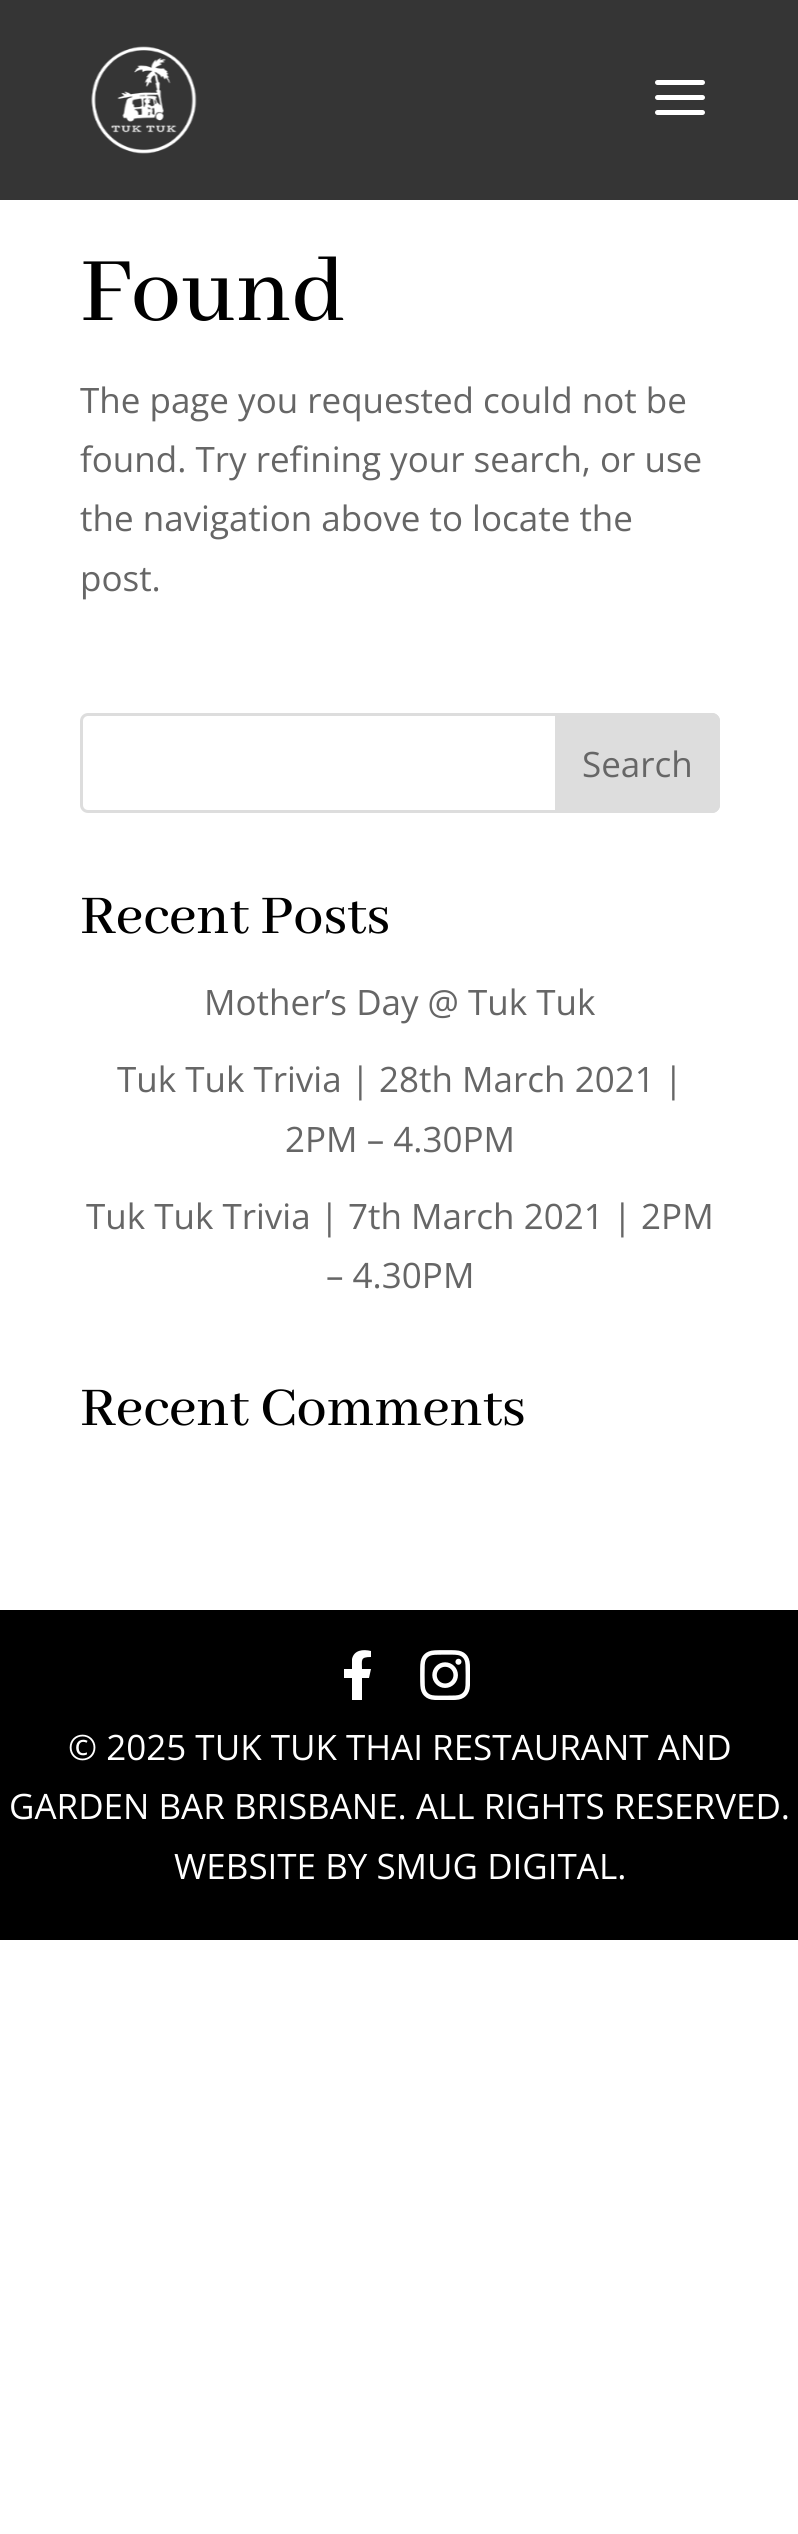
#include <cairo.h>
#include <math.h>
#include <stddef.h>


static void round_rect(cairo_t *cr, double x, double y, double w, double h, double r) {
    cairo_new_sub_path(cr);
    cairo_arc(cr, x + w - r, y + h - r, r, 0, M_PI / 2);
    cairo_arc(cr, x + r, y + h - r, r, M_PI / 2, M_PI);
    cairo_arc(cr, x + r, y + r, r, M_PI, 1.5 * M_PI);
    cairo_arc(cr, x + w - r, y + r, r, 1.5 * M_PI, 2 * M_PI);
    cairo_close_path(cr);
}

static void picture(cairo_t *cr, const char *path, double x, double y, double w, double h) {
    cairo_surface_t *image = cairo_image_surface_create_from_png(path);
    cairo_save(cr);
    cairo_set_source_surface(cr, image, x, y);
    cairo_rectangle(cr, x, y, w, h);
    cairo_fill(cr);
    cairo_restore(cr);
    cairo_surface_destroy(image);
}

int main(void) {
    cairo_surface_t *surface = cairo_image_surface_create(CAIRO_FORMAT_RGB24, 798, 2534);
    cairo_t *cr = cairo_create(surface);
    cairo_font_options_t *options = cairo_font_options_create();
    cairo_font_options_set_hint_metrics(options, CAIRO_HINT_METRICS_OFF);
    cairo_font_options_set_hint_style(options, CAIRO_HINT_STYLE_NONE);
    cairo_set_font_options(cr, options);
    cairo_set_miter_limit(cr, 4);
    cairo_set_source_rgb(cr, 1, 1, 1);
    cairo_paint(cr);
    cairo_set_source_rgba(cr, 0, 0, 0, 0.79);
    cairo_rectangle(cr, 0, 0, 798, 200);
    cairo_fill(cr);
    picture(cr, "img1.png", 91, 46, 106, 108);
    picture(cr, "img2.png", 655, 80, 50, 35);
    cairo_select_font_face(cr, "Abhaya Libre Medium Medium", CAIRO_FONT_SLANT_NORMAL, CAIRO_FONT_WEIGHT_NORMAL);
    cairo_set_font_size(cr, 100);
    cairo_set_source_rgb(cr, 0, 0, 0);
    cairo_move_to(cr, 80, 320);
    cairo_show_text(cr, "Found");
    cairo_select_font_face(cr, "Open Sans", CAIRO_FONT_SLANT_NORMAL, CAIRO_FONT_WEIGHT_NORMAL);
    cairo_set_font_size(cr, 35);
    cairo_set_source_rgb(cr, 0.4, 0.4, 0.4);
    cairo_move_to(cr, 80, 413);
    cairo_show_text(cr, "The page you requested could not be");
    cairo_move_to(cr, 80, 472);
    cairo_show_text(cr, "found. Try refining your search, or use");
    cairo_move_to(cr, 80, 531);
    cairo_show_text(cr, "the navigation above to locate the");
    cairo_move_to(cr, 80, 591);
    cairo_show_text(cr, "post.");
    round_rect(cr, 81.5, 714.5, 637, 97, 6.5);
    cairo_set_source_rgb(cr, 0.867, 0.867, 0.867);
    cairo_set_line_width(cr, 3);
    cairo_stroke(cr);
    cairo_new_path(cr);
    cairo_move_to(cr, 556.5, 714.5);
    cairo_line_to(cr, 712, 714.5);
    cairo_curve_to(cr, 715.5, 714.5, 718.5, 717.5, 718.5, 721);
    cairo_line_to(cr, 718.5, 805);
    cairo_curve_to(cr, 718.5, 808.5, 715.5, 811.5, 712, 811.5);
    cairo_line_to(cr, 556.5, 811.5);
    cairo_close_path(cr);
    cairo_fill_preserve(cr);
    cairo_stroke(cr);
    cairo_set_source_rgb(cr, 0.4, 0.4, 0.4);
    cairo_move_to(cr, 582, 777);
    cairo_show_text(cr, "Search");
    cairo_select_font_face(cr, "Abhaya Libre Medium Medium", CAIRO_FONT_SLANT_NORMAL, CAIRO_FONT_WEIGHT_NORMAL);
    cairo_set_font_size(cr, 60);
    cairo_set_source_rgb(cr, 0, 0, 0);
    cairo_move_to(cr, 80, 933);
    cairo_show_text(cr, "Recent Posts");
    cairo_select_font_face(cr, "Open Sans", CAIRO_FONT_SLANT_NORMAL, CAIRO_FONT_WEIGHT_NORMAL);
    cairo_set_font_size(cr, 35);
    cairo_set_source_rgb(cr, 0.4, 0.4, 0.4);
    cairo_move_to(cr, 204, 1015);
    cairo_show_text(cr, "Mother’s Day @ Tuk Tuk");
    cairo_move_to(cr, 117, 1092);
    cairo_show_text(cr, "Tuk Tuk Trivia | 28th March 2021 |");
    cairo_move_to(cr, 285, 1152);
    cairo_show_text(cr, "2PM – 4.30PM");
    cairo_move_to(cr, 86, 1229);
    cairo_show_text(cr, "Tuk Tuk Trivia | 7th March 2021 | 2PM");
    cairo_move_to(cr, 326, 1288);
    cairo_show_text(cr, "– 4.30PM");
    cairo_select_font_face(cr, "Abhaya Libre Medium Medium", CAIRO_FONT_SLANT_NORMAL, CAIRO_FONT_WEIGHT_NORMAL);
    cairo_set_font_size(cr, 60);
    cairo_set_source_rgb(cr, 0, 0, 0);
    cairo_move_to(cr, 80, 1425);
    cairo_show_text(cr, "Recent Comments");
    cairo_rectangle(cr, 0, 1610, 798, 330);
    cairo_fill(cr);
    cairo_set_source_rgb(cr, 1, 1, 1);
    cairo_new_path(cr);
    cairo_move_to(cr, 369, 1678);
    cairo_line_to(cr, 371, 1669);
    cairo_line_to(cr, 362, 1669);
    cairo_curve_to(cr, 362, 1660, 360, 1657, 371, 1657);
    cairo_line_to(cr, 371, 1651);
    cairo_curve_to(cr, 363, 1649, 354, 1650, 352, 1659);
    cairo_line_to(cr, 352, 1669);
    cairo_line_to(cr, 344, 1669);
    cairo_line_to(cr, 344, 1678);
    cairo_line_to(cr, 352, 1678);
    cairo_line_to(cr, 352, 1700);
    cairo_line_to(cr, 362, 1700);
    cairo_line_to(cr, 362, 1678);
    cairo_close_path(cr);
    cairo_fill(cr);
    picture(cr, "img3.png", 420, 1650, 50, 50);
    cairo_select_font_face(cr, "Open Sans", CAIRO_FONT_SLANT_NORMAL, CAIRO_FONT_WEIGHT_NORMAL);
    cairo_set_font_size(cr, 35);
    cairo_move_to(cr, 68, 1760);
    cairo_show_text(cr, "© 2025 TUK TUK THAI RESTAURANT AND");
    cairo_move_to(cr, 9, 1819);
    cairo_show_text(cr, "GARDEN BAR BRISBANE. ALL RIGHTS RESERVED.");
    cairo_move_to(cr, 174, 1879);
    cairo_show_text(cr, "WEBSITE BY SMUG DIGITAL.");
    cairo_surface_write_to_png(surface, "page.png");
    cairo_font_options_destroy(options);
    cairo_destroy(cr);
    cairo_surface_destroy(surface);
    return 0;
}
